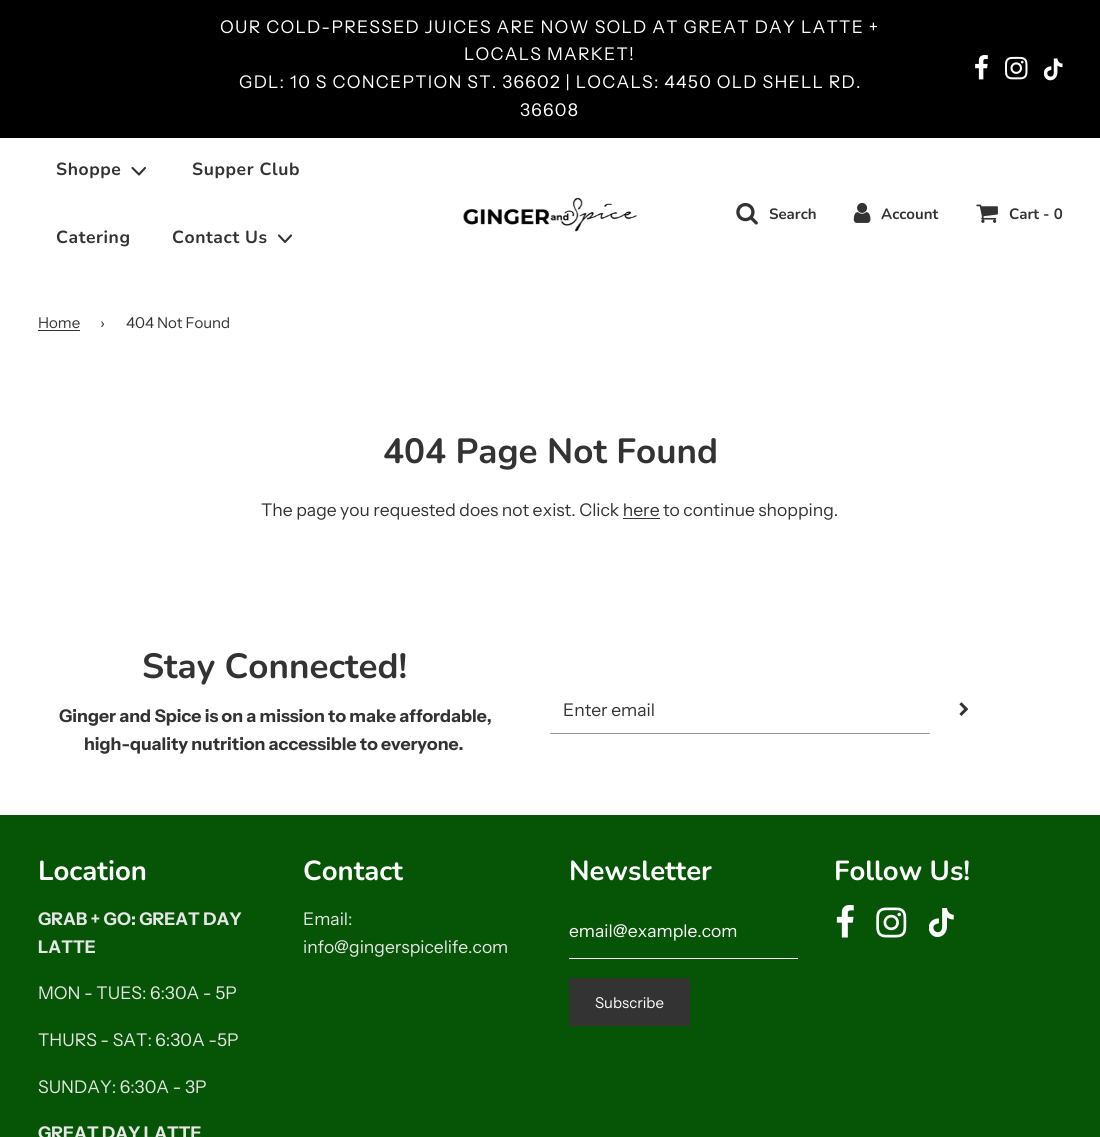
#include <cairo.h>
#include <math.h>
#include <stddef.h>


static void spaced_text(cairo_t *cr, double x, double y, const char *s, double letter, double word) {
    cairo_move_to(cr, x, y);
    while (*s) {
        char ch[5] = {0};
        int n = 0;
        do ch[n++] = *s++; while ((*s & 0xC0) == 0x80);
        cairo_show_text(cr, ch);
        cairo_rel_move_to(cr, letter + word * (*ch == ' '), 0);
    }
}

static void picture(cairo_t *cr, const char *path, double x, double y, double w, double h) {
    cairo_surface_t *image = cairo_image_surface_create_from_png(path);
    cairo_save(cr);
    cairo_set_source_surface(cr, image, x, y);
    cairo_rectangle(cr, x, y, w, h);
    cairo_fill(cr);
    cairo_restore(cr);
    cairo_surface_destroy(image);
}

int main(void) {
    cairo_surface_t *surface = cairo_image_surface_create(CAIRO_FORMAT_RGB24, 1100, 1137);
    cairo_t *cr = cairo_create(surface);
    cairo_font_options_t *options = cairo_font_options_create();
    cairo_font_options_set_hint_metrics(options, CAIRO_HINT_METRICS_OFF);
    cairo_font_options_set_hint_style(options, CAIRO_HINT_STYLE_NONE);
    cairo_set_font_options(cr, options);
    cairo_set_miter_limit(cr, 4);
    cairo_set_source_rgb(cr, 1, 1, 1);
    cairo_paint(cr);
    cairo_set_source_rgb(cr, 0, 0, 0);
    cairo_rectangle(cr, 0, 0, 1100, 138);
    cairo_fill(cr);
    cairo_select_font_face(cr, "Instrument Sans", CAIRO_FONT_SLANT_NORMAL, CAIRO_FONT_WEIGHT_NORMAL);
    cairo_set_font_size(cr, 17.5);
    cairo_set_source_rgb(cr, 1, 1, 1);
    spaced_text(cr, 220, 33, "OUR COLD-PRESSED JUICES ARE NOW SOLD AT GREAT DAY LATTE +", 1.25, 0);
    spaced_text(cr, 464, 60, "LOCALS MARKET!", 1.25, 0);
    spaced_text(cr, 239, 88, "GDL: 10 S CONCEPTION ST. 36602 | LOCALS: 4450 OLD SHELL RD.", 1.25, 0);
    spaced_text(cr, 520, 116, "36608", 1.25, 0);
    picture(cr, "img1.png", 975, 55, 13, 25);
    picture(cr, "img2.png", 1005, 56, 23, 24);
    picture(cr, "img3.png", 1044, 58, 19, 23);
    cairo_select_font_face(cr, "Nunito", CAIRO_FONT_SLANT_NORMAL, CAIRO_FONT_WEIGHT_BOLD);
    cairo_set_source_rgb(cr, 0.2, 0.2, 0.2);
    spaced_text(cr, 56, 175, "Shoppe", 0.6, 0);
    cairo_new_path(cr);
    cairo_move_to(cr, 132.5, 168);
    cairo_line_to(cr, 139, 174.5);
    cairo_line_to(cr, 145, 168);
    cairo_set_line_width(cr, 2.1);
    cairo_set_line_cap(cr, CAIRO_LINE_CAP_ROUND);
    cairo_set_line_join(cr, CAIRO_LINE_JOIN_ROUND);
    cairo_stroke(cr);
    spaced_text(cr, 192, 175, "Supper Club", 0.6, 0);
    spaced_text(cr, 56, 243, "Catering", 0.6, 0);
    spaced_text(cr, 172, 243, "Contact Us", 0.6, 0);
    cairo_new_path(cr);
    cairo_move_to(cr, 279, 235.5);
    cairo_line_to(cr, 285, 242);
    cairo_line_to(cr, 291, 235.5);
    cairo_stroke(cr);
    picture(cr, "img4.png", 463, 197, 174, 35);
    picture(cr, "img5.png", 736, 202, 22, 23);
    cairo_set_font_size(cr, 15);
    cairo_move_to(cr, 769, 219);
    cairo_show_text(cr, "Search");
    picture(cr, "img6.png", 853, 202, 18, 21);
    cairo_move_to(cr, 881, 219);
    cairo_show_text(cr, "Account");
    picture(cr, "img7.png", 976, 204, 22, 19);
    cairo_move_to(cr, 1009, 219);
    cairo_show_text(cr, "Cart - 0");
    cairo_select_font_face(cr, "Instrument Sans", CAIRO_FONT_SLANT_NORMAL, CAIRO_FONT_WEIGHT_NORMAL);
    cairo_move_to(cr, 38, 328);
    cairo_show_text(cr, "Home");
    cairo_rectangle(cr, 38, 330, 42, 1);
    cairo_fill(cr);
    cairo_move_to(cr, 100, 328);
    cairo_show_text(cr, "›");
    cairo_move_to(cr, 126, 328);
    cairo_show_text(cr, "404 Not Found");
    cairo_select_font_face(cr, "Nunito", CAIRO_FONT_SLANT_NORMAL, CAIRO_FONT_WEIGHT_BOLD);
    cairo_set_font_size(cr, 35);
    cairo_move_to(cr, 383, 463);
    cairo_show_text(cr, "404 Page Not Found");
    cairo_select_font_face(cr, "Instrument Sans", CAIRO_FONT_SLANT_NORMAL, CAIRO_FONT_WEIGHT_NORMAL);
    cairo_set_font_size(cr, 17.5);
    cairo_move_to(cr, 261, 516);
    cairo_show_text(cr, "The page you requested does not exist. Click here to continue shopping.");
    cairo_rectangle(cr, 623, 518, 37, 1);
    cairo_fill(cr);
    cairo_select_font_face(cr, "Nunito", CAIRO_FONT_SLANT_NORMAL, CAIRO_FONT_WEIGHT_BOLD);
    cairo_set_font_size(cr, 35);
    cairo_move_to(cr, 142, 678);
    cairo_show_text(cr, "Stay Connected!");
    cairo_select_font_face(cr, "Instrument Sans", CAIRO_FONT_SLANT_NORMAL, CAIRO_FONT_WEIGHT_BOLD);
    cairo_set_font_size(cr, 17.5);
    cairo_move_to(cr, 59, 722);
    cairo_show_text(cr, "Ginger and Spice is on a mission to make affordable,");
    cairo_move_to(cr, 84, 750);
    cairo_show_text(cr, "high-quality nutrition accessible to everyone.");
    cairo_set_source_rgb(cr, 0.6, 0.6, 0.6);
    cairo_rectangle(cr, 550, 733, 380, 1);
    cairo_fill(cr);
    cairo_select_font_face(cr, "Instrument Sans", CAIRO_FONT_SLANT_NORMAL, CAIRO_FONT_WEIGHT_NORMAL);
    cairo_set_source_rgb(cr, 0.2, 0.2, 0.2);
    cairo_move_to(cr, 563, 716);
    cairo_show_text(cr, "Enter email");
    picture(cr, "img8.png", 959, 702, 10, 14);
    cairo_set_source_rgb(cr, 0.024, 0.333, 0.024);
    cairo_rectangle(cr, 0, 815, 1100, 322);
    cairo_fill(cr);
    cairo_select_font_face(cr, "Nunito", CAIRO_FONT_SLANT_NORMAL, CAIRO_FONT_WEIGHT_BOLD);
    cairo_set_font_size(cr, 27.5);
    cairo_set_source_rgb(cr, 1, 1, 1);
    cairo_move_to(cr, 38, 880);
    cairo_show_text(cr, "Location");
    cairo_select_font_face(cr, "Instrument Sans", CAIRO_FONT_SLANT_NORMAL, CAIRO_FONT_WEIGHT_BOLD);
    cairo_set_font_size(cr, 17.5);
    cairo_set_source_rgb(cr, 0.902, 0.902, 0.902);
    cairo_move_to(cr, 38, 925);
    cairo_show_text(cr, "GRAB + GO: GREAT DAY");
    cairo_move_to(cr, 38, 953);
    cairo_show_text(cr, "LATTE");
    cairo_select_font_face(cr, "Instrument Sans", CAIRO_FONT_SLANT_NORMAL, CAIRO_FONT_WEIGHT_NORMAL);
    cairo_move_to(cr, 38, 999);
    cairo_show_text(cr, "MON - TUES: 6:30A - 5P");
    cairo_move_to(cr, 38, 1046);
    cairo_show_text(cr, "THURS - SAT: 6:30A -5P");
    cairo_move_to(cr, 38, 1093);
    cairo_show_text(cr, "SUNDAY: 6:30A - 3P");
    cairo_select_font_face(cr, "Instrument Sans", CAIRO_FONT_SLANT_NORMAL, CAIRO_FONT_WEIGHT_BOLD);
    cairo_move_to(cr, 38, 1139);
    cairo_show_text(cr, "GREAT DAY LATTE");
    cairo_select_font_face(cr, "Nunito", CAIRO_FONT_SLANT_NORMAL, CAIRO_FONT_WEIGHT_BOLD);
    cairo_set_font_size(cr, 27.5);
    cairo_set_source_rgb(cr, 1, 1, 1);
    cairo_move_to(cr, 303, 880);
    cairo_show_text(cr, "Contact");
    cairo_select_font_face(cr, "Instrument Sans", CAIRO_FONT_SLANT_NORMAL, CAIRO_FONT_WEIGHT_NORMAL);
    cairo_set_font_size(cr, 17.5);
    cairo_set_source_rgb(cr, 0.902, 0.902, 0.902);
    cairo_move_to(cr, 303, 925);
    cairo_show_text(cr, "Email:");
    cairo_move_to(cr, 303, 953);
    cairo_show_text(cr, "info@gingerspicelife.com");
    cairo_select_font_face(cr, "Nunito", CAIRO_FONT_SLANT_NORMAL, CAIRO_FONT_WEIGHT_BOLD);
    cairo_set_font_size(cr, 27.5);
    cairo_set_source_rgb(cr, 1, 1, 1);
    cairo_move_to(cr, 569, 880);
    cairo_show_text(cr, "Newsletter");
    cairo_rectangle(cr, 569, 958, 229, 1);
    cairo_fill(cr);
    cairo_select_font_face(cr, "Instrument Sans", CAIRO_FONT_SLANT_NORMAL, CAIRO_FONT_WEIGHT_NORMAL);
    cairo_set_font_size(cr, 17.5);
    cairo_move_to(cr, 569, 937);
    cairo_show_text(cr, "email@example.com");
    cairo_set_source_rgb(cr, 0.2, 0.2, 0.2);
    cairo_rectangle(cr, 569, 978, 121, 48);
    cairo_fill(cr);
    cairo_set_font_size(cr, 15);
    cairo_set_source_rgb(cr, 1, 1, 1);
    cairo_move_to(cr, 595, 1008);
    cairo_show_text(cr, "Subscribe");
    cairo_select_font_face(cr, "Nunito", CAIRO_FONT_SLANT_NORMAL, CAIRO_FONT_WEIGHT_BOLD);
    cairo_set_font_size(cr, 27.5);
    cairo_move_to(cr, 834, 880);
    cairo_show_text(cr, "Follow Us!");
    picture(cr, "img9.png", 836, 905, 18, 33);
    picture(cr, "img10.png", 876, 907, 31, 31);
    picture(cr, "img11.png", 929, 908, 25, 30);
    cairo_surface_write_to_png(surface, "page.png");
    cairo_font_options_destroy(options);
    cairo_destroy(cr);
    cairo_surface_destroy(surface);
    return 0;
}
